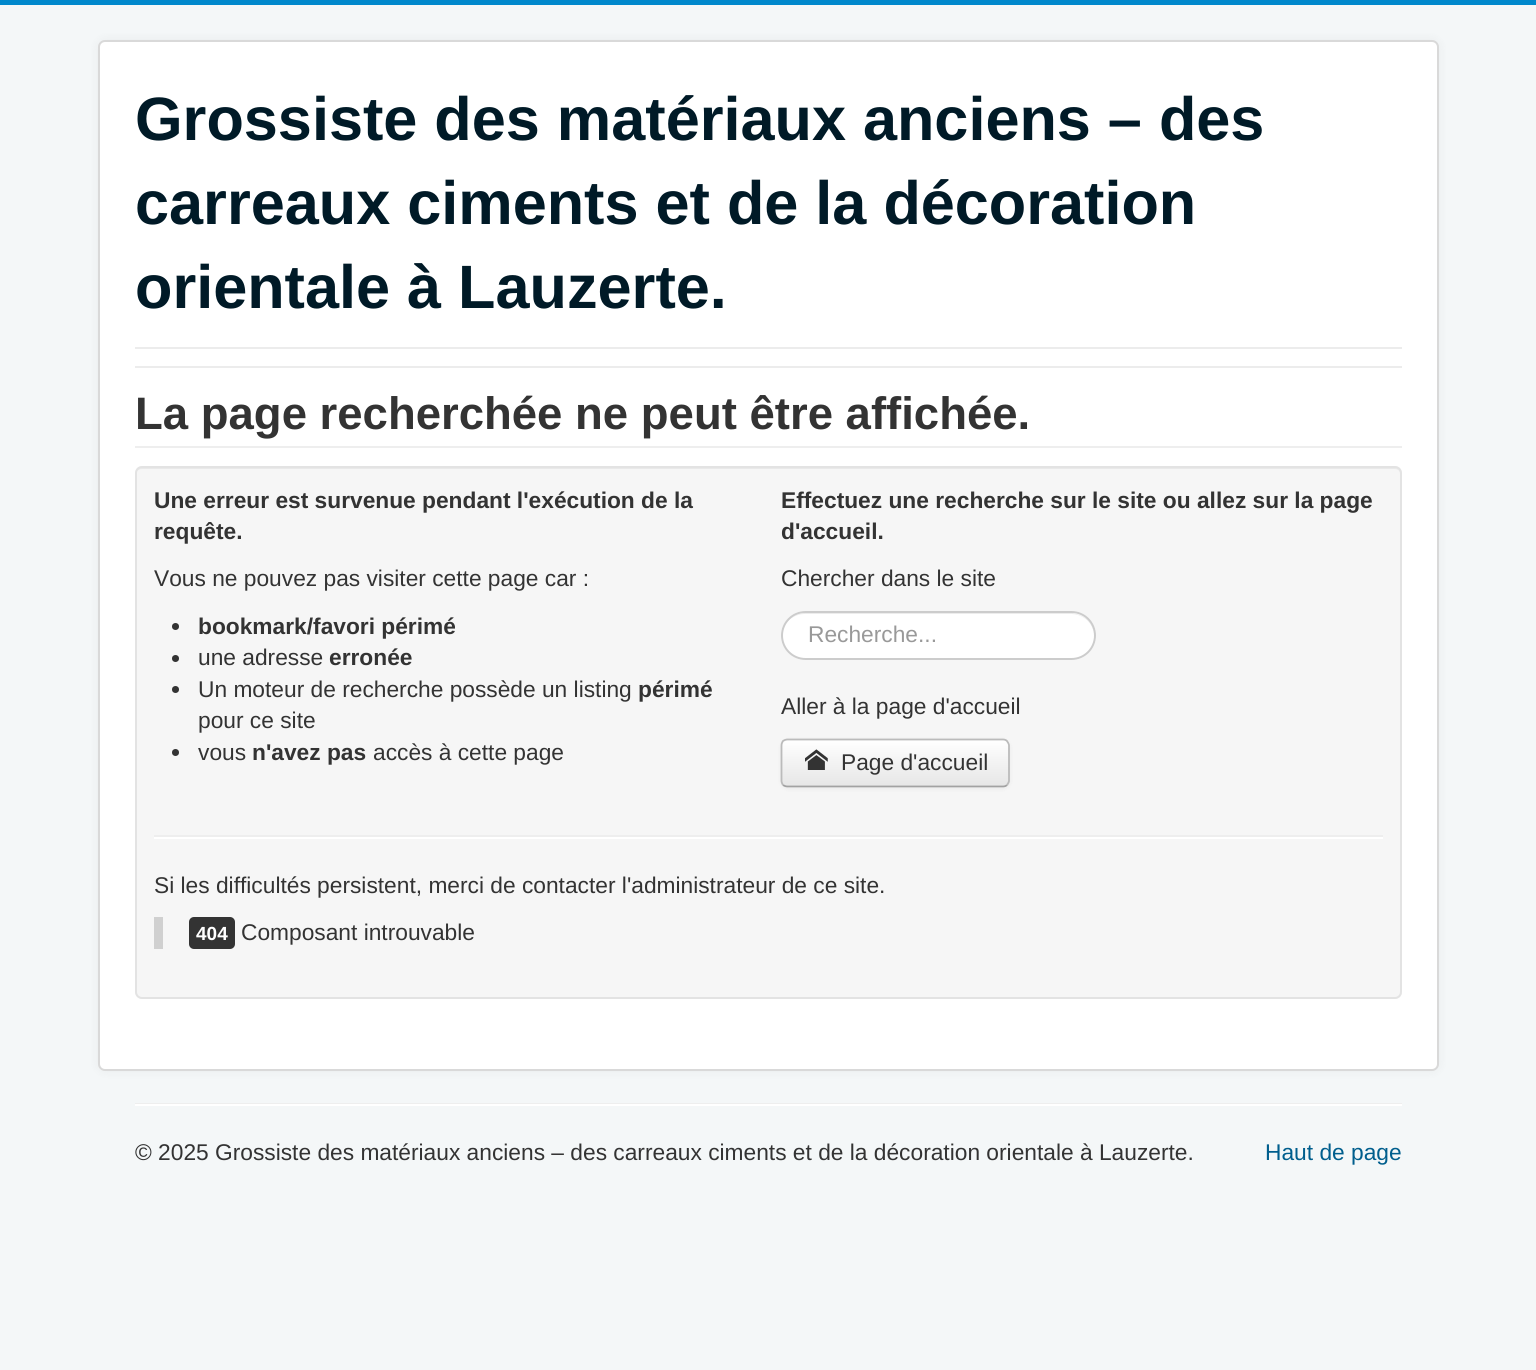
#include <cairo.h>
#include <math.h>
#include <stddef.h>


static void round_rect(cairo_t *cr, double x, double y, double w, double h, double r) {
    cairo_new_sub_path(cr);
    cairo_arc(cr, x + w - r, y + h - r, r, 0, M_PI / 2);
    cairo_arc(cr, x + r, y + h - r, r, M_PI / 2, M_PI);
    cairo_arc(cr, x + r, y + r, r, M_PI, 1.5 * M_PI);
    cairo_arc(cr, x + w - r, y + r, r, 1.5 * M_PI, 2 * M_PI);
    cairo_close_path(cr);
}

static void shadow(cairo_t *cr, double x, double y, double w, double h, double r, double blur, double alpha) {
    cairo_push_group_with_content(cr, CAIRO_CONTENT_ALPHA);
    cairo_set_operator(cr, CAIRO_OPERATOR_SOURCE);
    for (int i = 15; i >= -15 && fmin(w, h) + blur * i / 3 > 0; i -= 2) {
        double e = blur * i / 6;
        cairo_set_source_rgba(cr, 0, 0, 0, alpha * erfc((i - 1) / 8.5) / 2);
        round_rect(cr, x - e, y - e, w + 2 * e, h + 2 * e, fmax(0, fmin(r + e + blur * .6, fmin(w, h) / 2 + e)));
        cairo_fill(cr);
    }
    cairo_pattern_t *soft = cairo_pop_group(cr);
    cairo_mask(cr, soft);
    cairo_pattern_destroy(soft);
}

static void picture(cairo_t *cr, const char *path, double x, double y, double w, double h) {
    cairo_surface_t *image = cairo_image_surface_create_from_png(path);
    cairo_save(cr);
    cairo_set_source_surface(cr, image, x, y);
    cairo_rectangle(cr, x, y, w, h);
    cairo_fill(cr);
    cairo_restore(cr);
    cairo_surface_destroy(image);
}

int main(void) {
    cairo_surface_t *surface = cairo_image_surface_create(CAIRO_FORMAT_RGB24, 1536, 1370);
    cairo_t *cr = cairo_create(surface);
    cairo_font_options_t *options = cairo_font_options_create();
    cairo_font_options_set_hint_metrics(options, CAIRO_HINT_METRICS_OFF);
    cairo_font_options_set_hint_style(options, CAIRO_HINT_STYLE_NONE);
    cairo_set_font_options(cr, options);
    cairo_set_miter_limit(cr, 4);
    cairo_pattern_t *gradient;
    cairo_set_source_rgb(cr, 0.957, 0.965, 0.969);
    cairo_paint(cr);
    cairo_set_source_rgb(cr, 0, 0.533, 0.8);
    cairo_rectangle(cr, 0, 0, 1536, 5);
    cairo_fill(cr);
    cairo_set_source_rgb(cr, 0, 0, 0);
    shadow(cr, 98, 40, 1341, 1031, 7, 5, 0.05);
    cairo_set_source_rgb(cr, 1, 1, 1);
    round_rect(cr, 98, 40, 1341, 1031, 7);
    cairo_fill(cr);
    round_rect(cr, 99, 41, 1339, 1029, 6);
    cairo_set_source_rgba(cr, 0, 0, 0, 0.15);
    cairo_stroke(cr);
    cairo_select_font_face(cr, "Liberation Sans", CAIRO_FONT_SLANT_NORMAL, CAIRO_FONT_WEIGHT_BOLD);
    cairo_set_font_size(cr, 61.2);
    cairo_set_source_rgb(cr, 0, 0.102, 0.153);
    cairo_move_to(cr, 135, 140);
    cairo_show_text(cr, "Grossiste des matériaux anciens – des");
    cairo_move_to(cr, 135, 224);
    cairo_show_text(cr, "carreaux ciments et de la décoration");
    cairo_move_to(cr, 135, 308);
    cairo_show_text(cr, "orientale à Lauzerte.");
    cairo_set_source_rgb(cr, 0.925, 0.925, 0.925);
    cairo_rectangle(cr, 135, 347, 1267, 2);
    cairo_fill(cr);
    cairo_rectangle(cr, 135, 366, 1267, 2);
    cairo_fill(cr);
    cairo_set_source_rgb(cr, 0.933, 0.933, 0.933);
    cairo_rectangle(cr, 135, 446, 1267, 2);
    cairo_fill(cr);
    cairo_set_font_size(cr, 45.5);
    cairo_set_source_rgb(cr, 0.2, 0.2, 0.2);
    cairo_move_to(cr, 135, 429);
    cairo_show_text(cr, "La page recherchée ne peut être affichée.");
    cairo_set_source_rgb(cr, 0.961, 0.961, 0.961);
    round_rect(cr, 135, 466, 1267, 533, 7);
    cairo_fill(cr);
    cairo_set_source_rgb(cr, 0.914, 0.914, 0.914);
    cairo_new_path(cr);
    cairo_move_to(cr, 142, 469);
    cairo_line_to(cr, 1395, 469);
    cairo_curve_to(cr, 1398, 469, 1400, 471, 1400, 474);
    cairo_line_to(cr, 1400, 472);
    cairo_curve_to(cr, 1400, 469, 1398, 467, 1395, 467);
    cairo_line_to(cr, 142, 467);
    cairo_curve_to(cr, 140, 467, 137, 469, 137, 471);
    cairo_curve_to(cr, 138, 470, 140, 469, 142, 469);
    cairo_close_path(cr);
    cairo_fill(cr);
    round_rect(cr, 136, 467, 1265, 531, 6);
    cairo_set_source_rgb(cr, 0.89, 0.89, 0.89);
    cairo_stroke(cr);
    cairo_set_font_size(cr, 22.75);
    cairo_set_source_rgb(cr, 0.2, 0.2, 0.2);
    cairo_move_to(cr, 154, 508);
    cairo_show_text(cr, "Une erreur est survenue pendant l'exécution de la");
    cairo_move_to(cr, 154, 539);
    cairo_show_text(cr, "requête.");
    cairo_select_font_face(cr, "Liberation Sans", CAIRO_FONT_SLANT_NORMAL, CAIRO_FONT_WEIGHT_NORMAL);
    cairo_move_to(cr, 154, 586);
    cairo_show_text(cr, "Vous ne pouvez pas visiter cette page car :");
    cairo_new_path(cr);
    cairo_arc(cr, 175.5, 626.5, 3.5, 0, 2 * M_PI);
    cairo_fill(cr);
    cairo_select_font_face(cr, "Liberation Sans", CAIRO_FONT_SLANT_NORMAL, CAIRO_FONT_WEIGHT_BOLD);
    cairo_move_to(cr, 198, 634);
    cairo_show_text(cr, "bookmark/favori périmé");
    cairo_new_path(cr);
    cairo_arc(cr, 175.5, 658.5, 3.5, 0, 2 * M_PI);
    cairo_fill(cr);
    cairo_select_font_face(cr, "Liberation Sans", CAIRO_FONT_SLANT_NORMAL, CAIRO_FONT_WEIGHT_NORMAL);
    cairo_move_to(cr, 198, 665);
    cairo_show_text(cr, "une adresse");
    cairo_select_font_face(cr, "Liberation Sans", CAIRO_FONT_SLANT_NORMAL, CAIRO_FONT_WEIGHT_BOLD);
    cairo_move_to(cr, 329, 665);
    cairo_show_text(cr, "erronée");
    cairo_new_path(cr);
    cairo_arc(cr, 175.5, 689.5, 3.5, 0, 2 * M_PI);
    cairo_fill(cr);
    cairo_select_font_face(cr, "Liberation Sans", CAIRO_FONT_SLANT_NORMAL, CAIRO_FONT_WEIGHT_NORMAL);
    cairo_move_to(cr, 198, 697);
    cairo_show_text(cr, "Un moteur de recherche possède un listing");
    cairo_select_font_face(cr, "Liberation Sans", CAIRO_FONT_SLANT_NORMAL, CAIRO_FONT_WEIGHT_BOLD);
    cairo_move_to(cr, 638, 697);
    cairo_show_text(cr, "périmé");
    cairo_select_font_face(cr, "Liberation Sans", CAIRO_FONT_SLANT_NORMAL, CAIRO_FONT_WEIGHT_NORMAL);
    cairo_move_to(cr, 198, 728);
    cairo_show_text(cr, "pour ce site");
    cairo_new_path(cr);
    cairo_arc(cr, 175.5, 752.5, 3.5, 0, 2 * M_PI);
    cairo_fill(cr);
    cairo_move_to(cr, 198, 760);
    cairo_show_text(cr, "vous");
    cairo_select_font_face(cr, "Liberation Sans", CAIRO_FONT_SLANT_NORMAL, CAIRO_FONT_WEIGHT_BOLD);
    cairo_move_to(cr, 252, 760);
    cairo_show_text(cr, "n'avez pas");
    cairo_select_font_face(cr, "Liberation Sans", CAIRO_FONT_SLANT_NORMAL, CAIRO_FONT_WEIGHT_NORMAL);
    cairo_move_to(cr, 373, 760);
    cairo_show_text(cr, "accès à cette page");
    cairo_select_font_face(cr, "Liberation Sans", CAIRO_FONT_SLANT_NORMAL, CAIRO_FONT_WEIGHT_BOLD);
    cairo_move_to(cr, 781, 508);
    cairo_show_text(cr, "Effectuez une recherche sur le site ou allez sur la page");
    cairo_move_to(cr, 781, 539);
    cairo_show_text(cr, "d'accueil.");
    cairo_select_font_face(cr, "Liberation Sans", CAIRO_FONT_SLANT_NORMAL, CAIRO_FONT_WEIGHT_NORMAL);
    cairo_move_to(cr, 781, 586);
    cairo_show_text(cr, "Chercher dans le site");
    cairo_set_source_rgb(cr, 1, 1, 1);
    round_rect(cr, 781, 611, 315, 49, 24.5);
    cairo_fill(cr);
    cairo_set_source_rgb(cr, 0.925, 0.925, 0.925);
    cairo_new_path(cr);
    cairo_move_to(cr, 805, 614);
    cairo_line_to(cr, 1071, 614);
    cairo_curve_to(cr, 1084, 614, 1094, 624, 1094, 636);
    cairo_curve_to(cr, 1095, 603, 1043, 613, 1027, 613);
    cairo_line_to(cr, 849, 613);
    cairo_curve_to(cr, 833, 613, 781, 603, 782, 636);
    cairo_curve_to(cr, 782, 624, 792, 614, 805, 614);
    cairo_close_path(cr);
    cairo_fill(cr);
    round_rect(cr, 782, 612, 313, 47, 23.5);
    cairo_set_source_rgb(cr, 0.8, 0.8, 0.8);
    cairo_stroke(cr);
    cairo_set_source_rgb(cr, 0.6, 0.6, 0.6);
    cairo_move_to(cr, 808, 642);
    cairo_show_text(cr, "Recherche...");
    cairo_set_source_rgb(cr, 0.2, 0.2, 0.2);
    cairo_move_to(cr, 781, 714);
    cairo_show_text(cr, "Aller à la page d'accueil");
    cairo_set_source_rgb(cr, 0, 0, 0);
    shadow(cr, 781, 740, 229, 49, 7, 2, 0.05);
    cairo_set_source_rgb(cr, 0.961, 0.961, 0.961);
    round_rect(cr, 781, 739, 229, 49, 7);
    cairo_fill(cr);
    cairo_save(cr);
    round_rect(cr, 781, 739, 229, 49, 7);
    cairo_clip(cr);
    gradient = cairo_pattern_create_linear(895, 740, 895, 786);
    cairo_pattern_add_color_stop_rgba(gradient, 0, 1, 1, 1, 1);
    cairo_pattern_add_color_stop_rgba(gradient, 1, 0.902, 0.902, 0.902, 1);
    cairo_set_source(cr, gradient);
    cairo_pattern_destroy(gradient);
    cairo_rectangle(cr, 781, 740, 229, 46);
    cairo_fill(cr);
    cairo_restore(cr);
    cairo_new_path(cr);
    cairo_move_to(cr, 1007, 785);
    cairo_curve_to(cr, 1006, 786, 1004.5, 786.5, 1003, 786.5);
    cairo_line_to(cr, 787.5, 786.5);
    cairo_curve_to(cr, 786, 786.5, 784.5, 786, 783, 785);
    cairo_set_source_rgb(cr, 0.635, 0.635, 0.635);
    cairo_set_line_width(cr, 1.8);
    cairo_stroke(cr);
    cairo_new_path(cr);
    cairo_move_to(cr, 783, 785);
    cairo_curve_to(cr, 782, 783.5, 781.5, 782, 781.5, 780.5);
    cairo_line_to(cr, 781.5, 745.5);
    cairo_curve_to(cr, 781.5, 744, 782, 742.5, 783, 741);
    cairo_curve_to(cr, 784.5, 740, 786, 739.5, 787.5, 739.5);
    cairo_line_to(cr, 1003, 739.5);
    cairo_curve_to(cr, 1004.5, 739.5, 1006, 740, 1007, 741);
    cairo_curve_to(cr, 1008, 742.5, 1009, 744, 1009, 745.5);
    cairo_line_to(cr, 1009, 780.5);
    cairo_curve_to(cr, 1009, 782, 1008, 783.5, 1007, 785);
    cairo_set_source_rgb(cr, 0.733, 0.733, 0.733);
    cairo_stroke(cr);
    picture(cr, "img1.png", 805, 749, 23, 21);
    cairo_set_source_rgb(cr, 0.2, 0.2, 0.2);
    cairo_move_to(cr, 841, 770);
    cairo_show_text(cr, "Page d'accueil");
    cairo_set_source_rgb(cr, 0.933, 0.933, 0.933);
    cairo_rectangle(cr, 154, 835, 1229, 2);
    cairo_fill(cr);
    cairo_set_source_rgb(cr, 1, 1, 1);
    cairo_rectangle(cr, 154, 837, 1229, 2);
    cairo_fill(cr);
    cairo_set_source_rgb(cr, 0.2, 0.2, 0.2);
    cairo_move_to(cr, 154, 893);
    cairo_show_text(cr, "Si les difficultés persistent, merci de contacter l'administrateur de ce site.");
    cairo_set_source_rgb(cr, 0.816, 0.816, 0.816);
    cairo_rectangle(cr, 154, 917, 9, 32);
    cairo_fill(cr);
    cairo_set_source_rgb(cr, 0.2, 0.2, 0.2);
    round_rect(cr, 189, 917, 46, 32, 5);
    cairo_fill(cr);
    cairo_select_font_face(cr, "Liberation Sans", CAIRO_FONT_SLANT_NORMAL, CAIRO_FONT_WEIGHT_BOLD);
    cairo_set_font_size(cr, 19);
    cairo_set_source_rgb(cr, 1, 1, 1);
    cairo_move_to(cr, 196, 940);
    cairo_show_text(cr, "404");
    cairo_select_font_face(cr, "Liberation Sans", CAIRO_FONT_SLANT_NORMAL, CAIRO_FONT_WEIGHT_NORMAL);
    cairo_set_font_size(cr, 22.75);
    cairo_set_source_rgb(cr, 0.2, 0.2, 0.2);
    cairo_move_to(cr, 241, 940);
    cairo_show_text(cr, "Composant introuvable");
    cairo_set_source_rgb(cr, 0.933, 0.933, 0.933);
    cairo_rectangle(cr, 135, 1103, 1267, 1);
    cairo_fill(cr);
    cairo_set_source_rgb(cr, 1, 1, 1);
    cairo_rectangle(cr, 135, 1104, 1267, 2);
    cairo_fill(cr);
    cairo_set_source_rgb(cr, 0.2, 0.2, 0.2);
    cairo_move_to(cr, 135, 1160);
    cairo_show_text(cr, "© 2025 Grossiste des matériaux anciens – des carreaux ciments et de la décoration orientale à Lauzerte.");
    cairo_set_source_rgb(cr, 0, 0.369, 0.553);
    cairo_move_to(cr, 1265, 1160);
    cairo_show_text(cr, "Haut de page");
    cairo_surface_write_to_png(surface, "page.png");
    cairo_font_options_destroy(options);
    cairo_destroy(cr);
    cairo_surface_destroy(surface);
    return 0;
}
